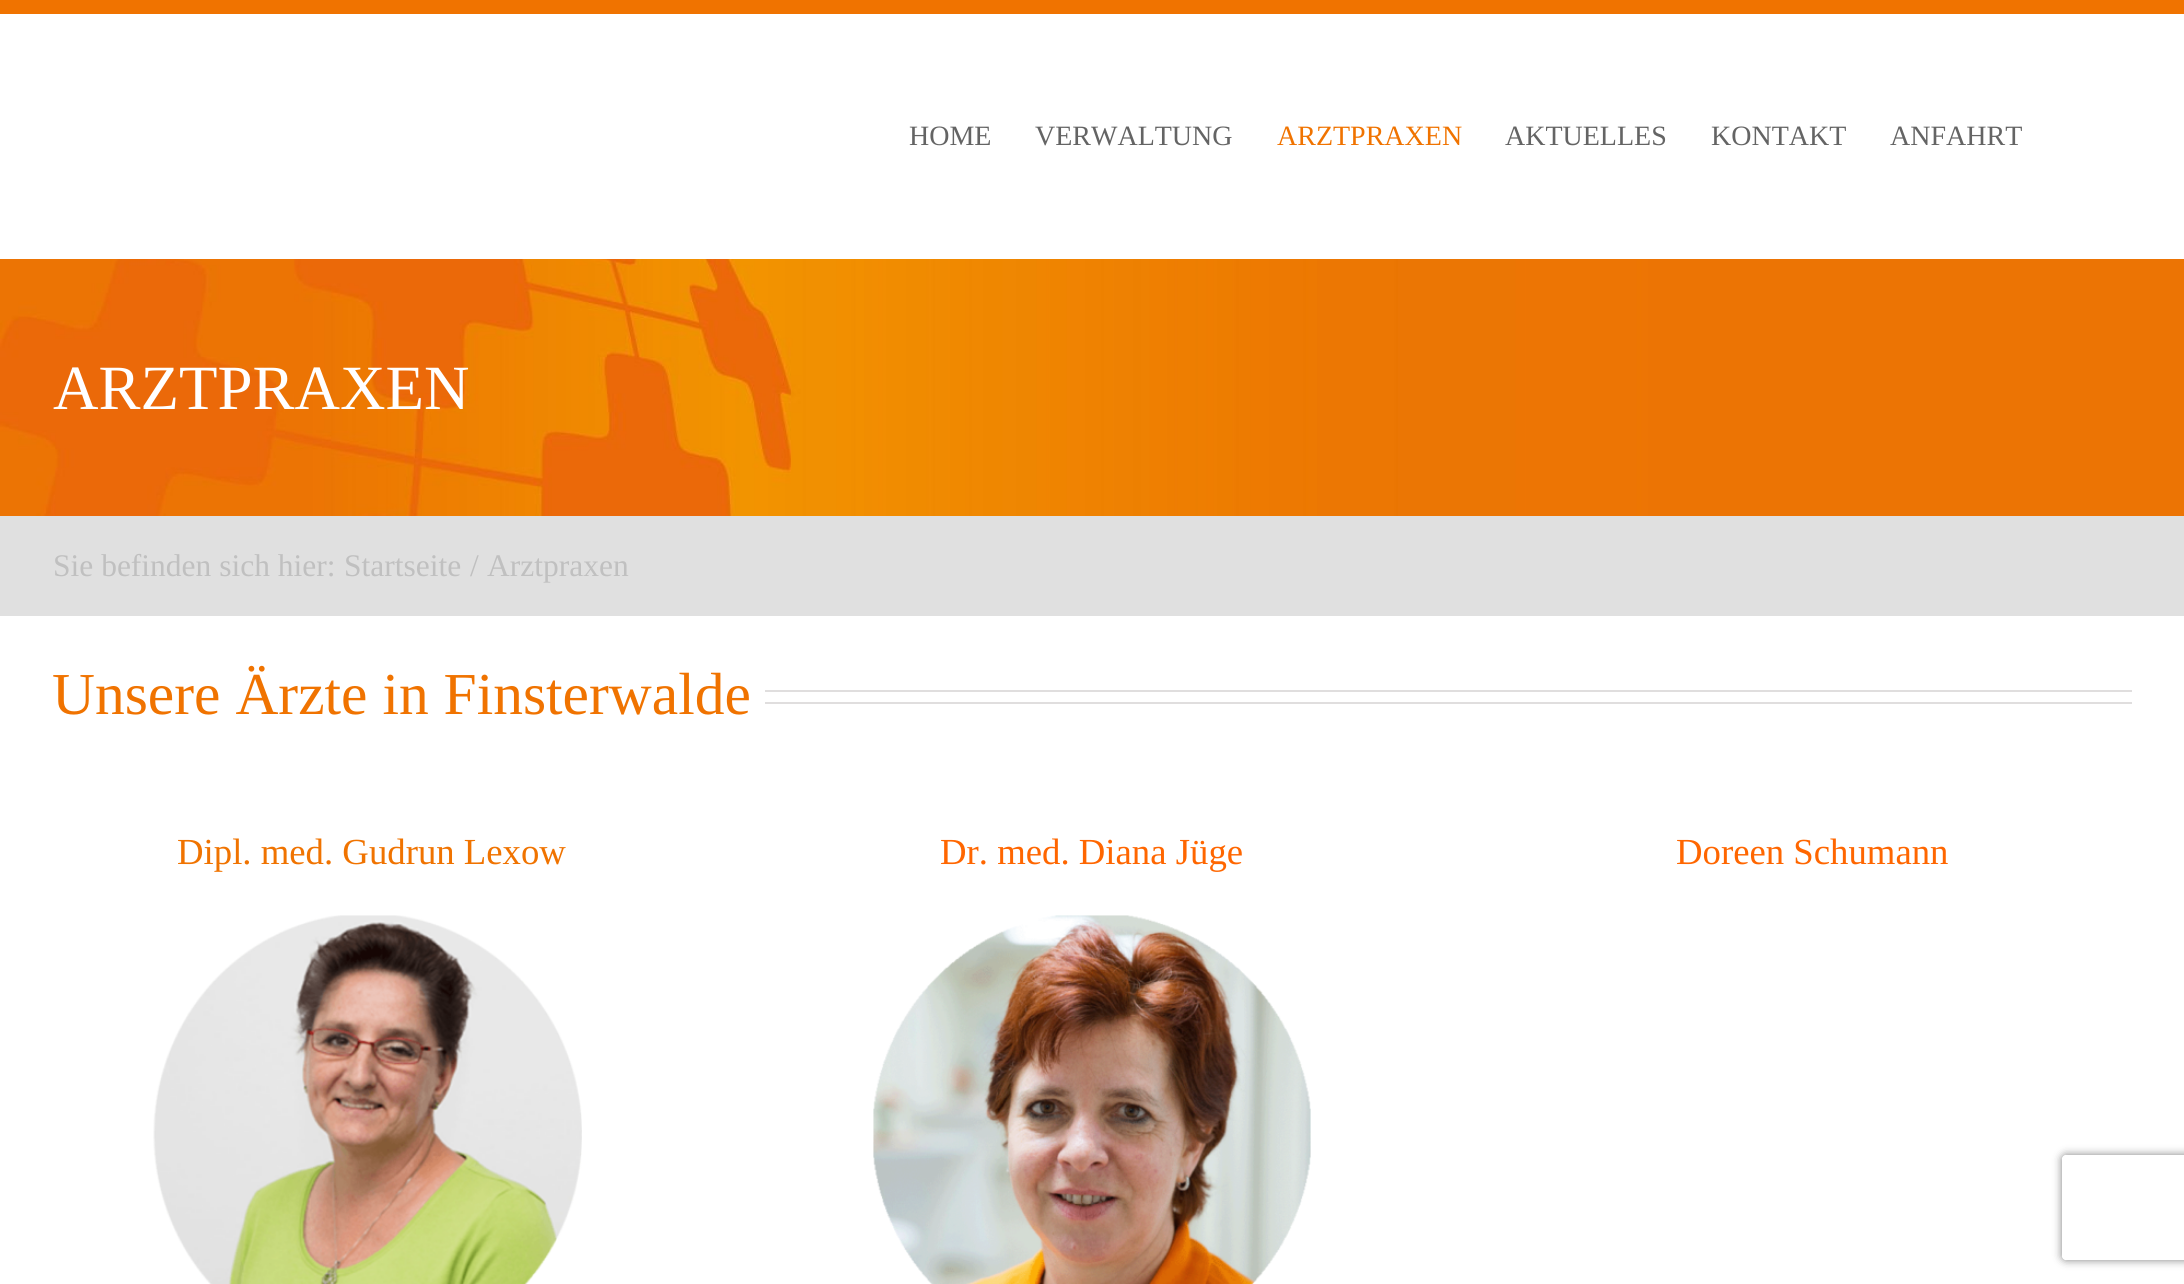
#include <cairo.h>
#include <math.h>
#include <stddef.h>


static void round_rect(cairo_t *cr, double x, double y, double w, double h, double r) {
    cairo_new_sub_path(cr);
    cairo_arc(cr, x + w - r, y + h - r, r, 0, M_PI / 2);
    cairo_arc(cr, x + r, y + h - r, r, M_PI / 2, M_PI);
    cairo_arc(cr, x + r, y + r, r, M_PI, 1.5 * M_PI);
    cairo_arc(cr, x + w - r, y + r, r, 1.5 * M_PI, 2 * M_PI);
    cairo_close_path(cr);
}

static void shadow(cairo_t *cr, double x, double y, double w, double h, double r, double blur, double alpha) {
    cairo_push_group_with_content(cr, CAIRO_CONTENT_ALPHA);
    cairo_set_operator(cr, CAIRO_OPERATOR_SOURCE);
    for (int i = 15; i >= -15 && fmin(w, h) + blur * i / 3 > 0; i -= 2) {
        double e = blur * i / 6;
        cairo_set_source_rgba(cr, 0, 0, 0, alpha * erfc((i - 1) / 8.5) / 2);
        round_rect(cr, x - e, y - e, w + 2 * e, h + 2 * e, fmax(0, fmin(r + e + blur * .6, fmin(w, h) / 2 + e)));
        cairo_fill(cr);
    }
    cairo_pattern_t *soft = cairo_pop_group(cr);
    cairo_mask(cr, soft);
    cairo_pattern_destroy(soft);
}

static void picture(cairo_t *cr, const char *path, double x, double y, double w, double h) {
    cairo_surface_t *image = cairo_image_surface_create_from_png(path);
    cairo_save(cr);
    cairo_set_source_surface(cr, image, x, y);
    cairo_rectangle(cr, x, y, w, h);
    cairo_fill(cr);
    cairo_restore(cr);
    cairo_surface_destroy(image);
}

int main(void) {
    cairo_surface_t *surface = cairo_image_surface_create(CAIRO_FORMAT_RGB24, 2184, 1284);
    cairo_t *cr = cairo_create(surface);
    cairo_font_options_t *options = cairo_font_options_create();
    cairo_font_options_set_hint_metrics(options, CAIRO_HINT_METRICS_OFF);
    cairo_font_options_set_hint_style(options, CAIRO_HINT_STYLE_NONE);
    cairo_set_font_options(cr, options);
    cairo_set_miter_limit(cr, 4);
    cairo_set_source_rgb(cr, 1, 1, 1);
    cairo_paint(cr);
    cairo_set_source_rgb(cr, 0.941, 0.451, 0);
    cairo_rectangle(cr, 0, 0, 2184, 14);
    cairo_fill(cr);
    cairo_select_font_face(cr, "Liberation Serif", CAIRO_FONT_SLANT_NORMAL, CAIRO_FONT_WEIGHT_NORMAL);
    cairo_set_font_size(cr, 28);
    cairo_set_source_rgb(cr, 0.392, 0.392, 0.392);
    cairo_move_to(cr, 909, 145);
    cairo_show_text(cr, "HOME");
    cairo_move_to(cr, 1035, 145);
    cairo_show_text(cr, "VERWALTUNG");
    cairo_set_source_rgb(cr, 0.941, 0.451, 0);
    cairo_move_to(cr, 1277, 145);
    cairo_show_text(cr, "ARZTPRAXEN");
    cairo_set_source_rgb(cr, 0.392, 0.392, 0.392);
    cairo_move_to(cr, 1505, 145);
    cairo_show_text(cr, "AKTUELLES");
    cairo_move_to(cr, 1711, 145);
    cairo_show_text(cr, "KONTAKT");
    cairo_move_to(cr, 1890, 145);
    cairo_show_text(cr, "ANFAHRT");
    picture(cr, "img1.png", 0, 259, 2184, 257);
    cairo_set_font_size(cr, 63);
    cairo_set_source_rgb(cr, 1, 1, 1);
    cairo_move_to(cr, 53, 409);
    cairo_show_text(cr, "ARZTPRAXEN");
    cairo_set_source_rgb(cr, 0.878, 0.878, 0.878);
    cairo_rectangle(cr, 0, 516, 2184, 100);
    cairo_fill(cr);
    cairo_set_font_size(cr, 31.5);
    cairo_set_source_rgb(cr, 0.753, 0.753, 0.753);
    cairo_move_to(cr, 53, 576);
    cairo_show_text(cr, "Sie befinden sich hier:");
    cairo_move_to(cr, 344, 576);
    cairo_show_text(cr, "Startseite");
    cairo_move_to(cr, 470, 576);
    cairo_show_text(cr, "/");
    cairo_move_to(cr, 487, 576);
    cairo_show_text(cr, "Arztpraxen");
    cairo_set_font_size(cr, 59.5);
    cairo_set_source_rgb(cr, 0.941, 0.451, 0);
    cairo_move_to(cr, 52, 714);
    cairo_show_text(cr, "Unsere Ärzte in Finsterwalde");
    cairo_set_source_rgb(cr, 0.878, 0.871, 0.871);
    cairo_rectangle(cr, 765, 690, 1367, 2);
    cairo_fill(cr);
    cairo_rectangle(cr, 765, 702, 1367, 2);
    cairo_fill(cr);
    cairo_set_font_size(cr, 36.75);
    cairo_set_source_rgb(cr, 0.941, 0.451, 0);
    cairo_move_to(cr, 177, 864);
    cairo_show_text(cr, "Dipl. med. Gudrun Lexow");
    picture(cr, "img2.png", 153, 915, 429, 369);
    cairo_set_source_rgb(cr, 1, 0.4, 0);
    cairo_move_to(cr, 940, 864);
    cairo_show_text(cr, "Dr. med. Diana Jüge");
    picture(cr, "img3.png", 873, 915, 438, 369);
    cairo_move_to(cr, 1676, 864);
    cairo_show_text(cr, "Doreen Schumann");
    cairo_save(cr);
    cairo_set_fill_rule(cr, CAIRO_FILL_RULE_EVEN_ODD);
    cairo_new_path(cr);
    cairo_move_to(cr, 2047, 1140);
    cairo_line_to(cr, 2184, 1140);
    cairo_line_to(cr, 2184, 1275);
    cairo_line_to(cr, 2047, 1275);
    cairo_close_path(cr);
    cairo_move_to(cr, 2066, 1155);
    cairo_line_to(cr, 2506, 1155);
    cairo_curve_to(cr, 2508, 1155, 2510, 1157, 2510, 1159);
    cairo_line_to(cr, 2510, 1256);
    cairo_curve_to(cr, 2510, 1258, 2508, 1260, 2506, 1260);
    cairo_line_to(cr, 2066, 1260);
    cairo_curve_to(cr, 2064, 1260, 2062, 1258, 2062, 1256);
    cairo_line_to(cr, 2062, 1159);
    cairo_curve_to(cr, 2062, 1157, 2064, 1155, 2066, 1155);
    cairo_close_path(cr);
    cairo_clip(cr);
    cairo_set_source_rgb(cr, 0.502, 0.502, 0.502);
    shadow(cr, 2062, 1155, 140, 105, 4, 4.5, 1);
    cairo_restore(cr);
    cairo_surface_write_to_png(surface, "page.png");
    cairo_font_options_destroy(options);
    cairo_destroy(cr);
    cairo_surface_destroy(surface);
    return 0;
}
